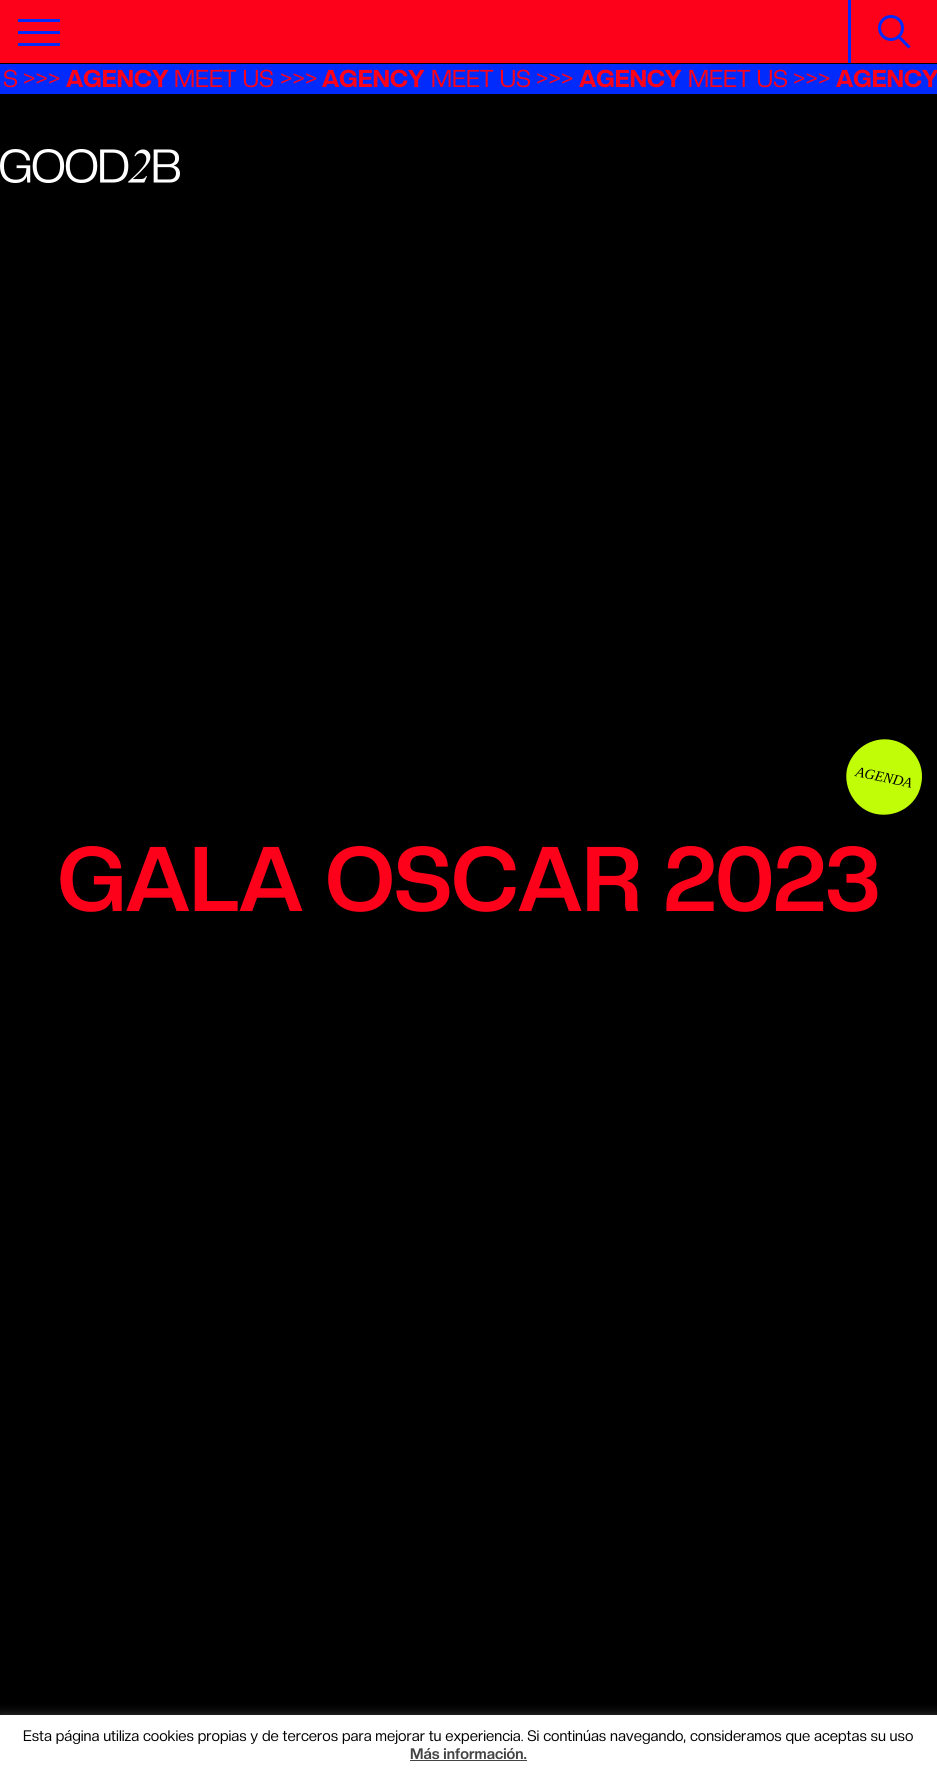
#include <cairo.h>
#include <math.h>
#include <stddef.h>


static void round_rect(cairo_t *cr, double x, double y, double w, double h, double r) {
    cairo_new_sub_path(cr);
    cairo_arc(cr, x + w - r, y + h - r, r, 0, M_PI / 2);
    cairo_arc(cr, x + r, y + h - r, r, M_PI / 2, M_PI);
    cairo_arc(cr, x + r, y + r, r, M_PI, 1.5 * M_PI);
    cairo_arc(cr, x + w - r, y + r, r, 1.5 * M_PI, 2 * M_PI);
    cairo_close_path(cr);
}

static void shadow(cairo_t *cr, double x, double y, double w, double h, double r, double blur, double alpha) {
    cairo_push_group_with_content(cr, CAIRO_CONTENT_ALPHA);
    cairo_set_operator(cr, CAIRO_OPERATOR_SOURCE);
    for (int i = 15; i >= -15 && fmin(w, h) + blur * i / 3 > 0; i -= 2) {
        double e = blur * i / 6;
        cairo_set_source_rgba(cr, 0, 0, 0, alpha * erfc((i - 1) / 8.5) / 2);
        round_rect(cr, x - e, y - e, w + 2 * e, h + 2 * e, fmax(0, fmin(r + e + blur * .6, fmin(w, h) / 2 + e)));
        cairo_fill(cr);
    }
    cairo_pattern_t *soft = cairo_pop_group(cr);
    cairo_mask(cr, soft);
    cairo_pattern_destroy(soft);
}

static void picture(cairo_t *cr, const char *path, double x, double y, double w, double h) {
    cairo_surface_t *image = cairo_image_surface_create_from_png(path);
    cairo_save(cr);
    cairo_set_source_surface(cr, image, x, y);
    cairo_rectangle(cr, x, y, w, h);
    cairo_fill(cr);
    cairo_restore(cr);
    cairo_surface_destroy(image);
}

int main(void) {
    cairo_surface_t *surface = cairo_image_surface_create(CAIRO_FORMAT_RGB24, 937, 1775);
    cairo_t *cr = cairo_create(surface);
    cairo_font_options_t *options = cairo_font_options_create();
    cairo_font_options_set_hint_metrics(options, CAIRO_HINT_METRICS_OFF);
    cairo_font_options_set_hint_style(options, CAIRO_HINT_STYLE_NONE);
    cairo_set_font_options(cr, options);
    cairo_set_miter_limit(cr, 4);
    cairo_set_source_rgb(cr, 0, 0, 0);
    cairo_paint(cr);
    cairo_set_source_rgb(cr, 0.992, 0.004, 0.102);
    cairo_rectangle(cr, 0, 0, 937, 63);
    cairo_fill(cr);
    cairo_set_source_rgb(cr, 0.004, 0.169, 0.992);
    cairo_rectangle(cr, 18, 19, 42, 3);
    cairo_fill(cr);
    cairo_rectangle(cr, 18, 31, 42, 3);
    cairo_fill(cr);
    cairo_rectangle(cr, 18, 43, 42, 3);
    cairo_fill(cr);
    cairo_rectangle(cr, 848, 0, 3, 63);
    cairo_fill(cr);
    cairo_arc(cr, 891, 28, 11.5, 0, 2 * M_PI);
    cairo_set_line_width(cr, 3);
    cairo_stroke(cr);
    cairo_new_path(cr);
    cairo_move_to(cr, 899.5, 37.5);
    cairo_line_to(cr, 909.5, 47.5);
    cairo_stroke(cr);
    cairo_rectangle(cr, 0, 64, 937, 30);
    cairo_fill(cr);
    cairo_select_font_face(cr, "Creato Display", CAIRO_FONT_SLANT_NORMAL, CAIRO_FONT_WEIGHT_NORMAL);
    cairo_set_font_size(cr, 24);
    cairo_set_source_rgb(cr, 0.992, 0.004, 0.102);
    cairo_move_to(cr, 3, 87);
    cairo_show_text(cr, "S");
    cairo_move_to(cr, 23, 87);
    cairo_show_text(cr, ">>>");
    cairo_select_font_face(cr, "Creato Display ExtraBold", CAIRO_FONT_SLANT_NORMAL, CAIRO_FONT_WEIGHT_NORMAL);
    cairo_move_to(cr, 66, 87);
    cairo_show_text(cr, "AGENCY");
    cairo_select_font_face(cr, "Creato Display", CAIRO_FONT_SLANT_NORMAL, CAIRO_FONT_WEIGHT_NORMAL);
    cairo_move_to(cr, 174, 87);
    cairo_show_text(cr, "MEET US");
    cairo_move_to(cr, 280, 87);
    cairo_show_text(cr, ">>>");
    cairo_select_font_face(cr, "Creato Display ExtraBold", CAIRO_FONT_SLANT_NORMAL, CAIRO_FONT_WEIGHT_NORMAL);
    cairo_move_to(cr, 322, 87);
    cairo_show_text(cr, "AGENCY");
    cairo_select_font_face(cr, "Creato Display", CAIRO_FONT_SLANT_NORMAL, CAIRO_FONT_WEIGHT_NORMAL);
    cairo_move_to(cr, 431, 87);
    cairo_show_text(cr, "MEET US");
    cairo_move_to(cr, 536, 87);
    cairo_show_text(cr, ">>>");
    cairo_select_font_face(cr, "Creato Display ExtraBold", CAIRO_FONT_SLANT_NORMAL, CAIRO_FONT_WEIGHT_NORMAL);
    cairo_move_to(cr, 579, 87);
    cairo_show_text(cr, "AGENCY");
    cairo_select_font_face(cr, "Creato Display", CAIRO_FONT_SLANT_NORMAL, CAIRO_FONT_WEIGHT_NORMAL);
    cairo_move_to(cr, 688, 87);
    cairo_show_text(cr, "MEET US");
    cairo_move_to(cr, 793, 87);
    cairo_show_text(cr, ">>>");
    cairo_select_font_face(cr, "Creato Display ExtraBold", CAIRO_FONT_SLANT_NORMAL, CAIRO_FONT_WEIGHT_NORMAL);
    cairo_move_to(cr, 836, 87);
    cairo_show_text(cr, "AGENCY");
    picture(cr, "img1.png", 0, 149, 180, 34);
    cairo_set_source_rgb(cr, 0.757, 0.992, 0.024);
    cairo_new_path(cr);
    cairo_move_to(cr, 892, 740);
    cairo_curve_to(cr, 912, 744, 926, 764, 921, 785);
    cairo_curve_to(cr, 917, 805, 897, 818, 876, 814);
    cairo_curve_to(cr, 856, 810, 843, 789, 847, 769);
    cairo_curve_to(cr, 852, 749, 872, 736, 892, 740);
    cairo_close_path(cr);
    cairo_fill(cr);
    cairo_select_font_face(cr, "Liberation Serif", CAIRO_FONT_SLANT_ITALIC, CAIRO_FONT_WEIGHT_NORMAL);
    cairo_set_font_size(cr, 14.5);
    cairo_set_source_rgb(cr, 0, 0, 0);
    cairo_save(cr);
    cairo_translate(cr, 855, 776);
    cairo_rotate(cr, 12 * M_PI / 180);
    cairo_move_to(cr, 0, 0);
    cairo_show_text(cr, "AGENDA");
    cairo_restore(cr);
    cairo_select_font_face(cr, "Creato Display", CAIRO_FONT_SLANT_NORMAL, CAIRO_FONT_WEIGHT_BOLD);
    cairo_set_font_size(cr, 90);
    cairo_set_source_rgb(cr, 0.992, 0.004, 0.102);
    cairo_move_to(cr, 58, 911);
    cairo_show_text(cr, "GALA OSCAR 2023");
    cairo_set_source_rgb(cr, 0.675, 0.671, 0.671);
    shadow(cr, 0, 1714, 937, 60, 0, 5, 0.3);
    cairo_set_source_rgb(cr, 1, 1, 1);
    cairo_rectangle(cr, 0, 1715, 937, 60);
    cairo_fill(cr);
    cairo_select_font_face(cr, "Creato Display", CAIRO_FONT_SLANT_NORMAL, CAIRO_FONT_WEIGHT_NORMAL);
    cairo_set_font_size(cr, 15);
    cairo_set_source_rgb(cr, 0, 0, 0);
    cairo_move_to(cr, 23, 1741);
    cairo_show_text(cr, "Esta página utiliza cookies propias y de terceros para mejorar tu experiencia. Si continúas navegando, consideramos que aceptas su uso");
    cairo_select_font_face(cr, "Creato Display", CAIRO_FONT_SLANT_NORMAL, CAIRO_FONT_WEIGHT_BOLD);
    cairo_set_source_rgb(cr, 0.267, 0.267, 0.267);
    cairo_move_to(cr, 410, 1759);
    cairo_show_text(cr, "Más información.");
    cairo_rectangle(cr, 410, 1760, 117, 1);
    cairo_fill(cr);
    cairo_surface_write_to_png(surface, "page.png");
    cairo_font_options_destroy(options);
    cairo_destroy(cr);
    cairo_surface_destroy(surface);
    return 0;
}
